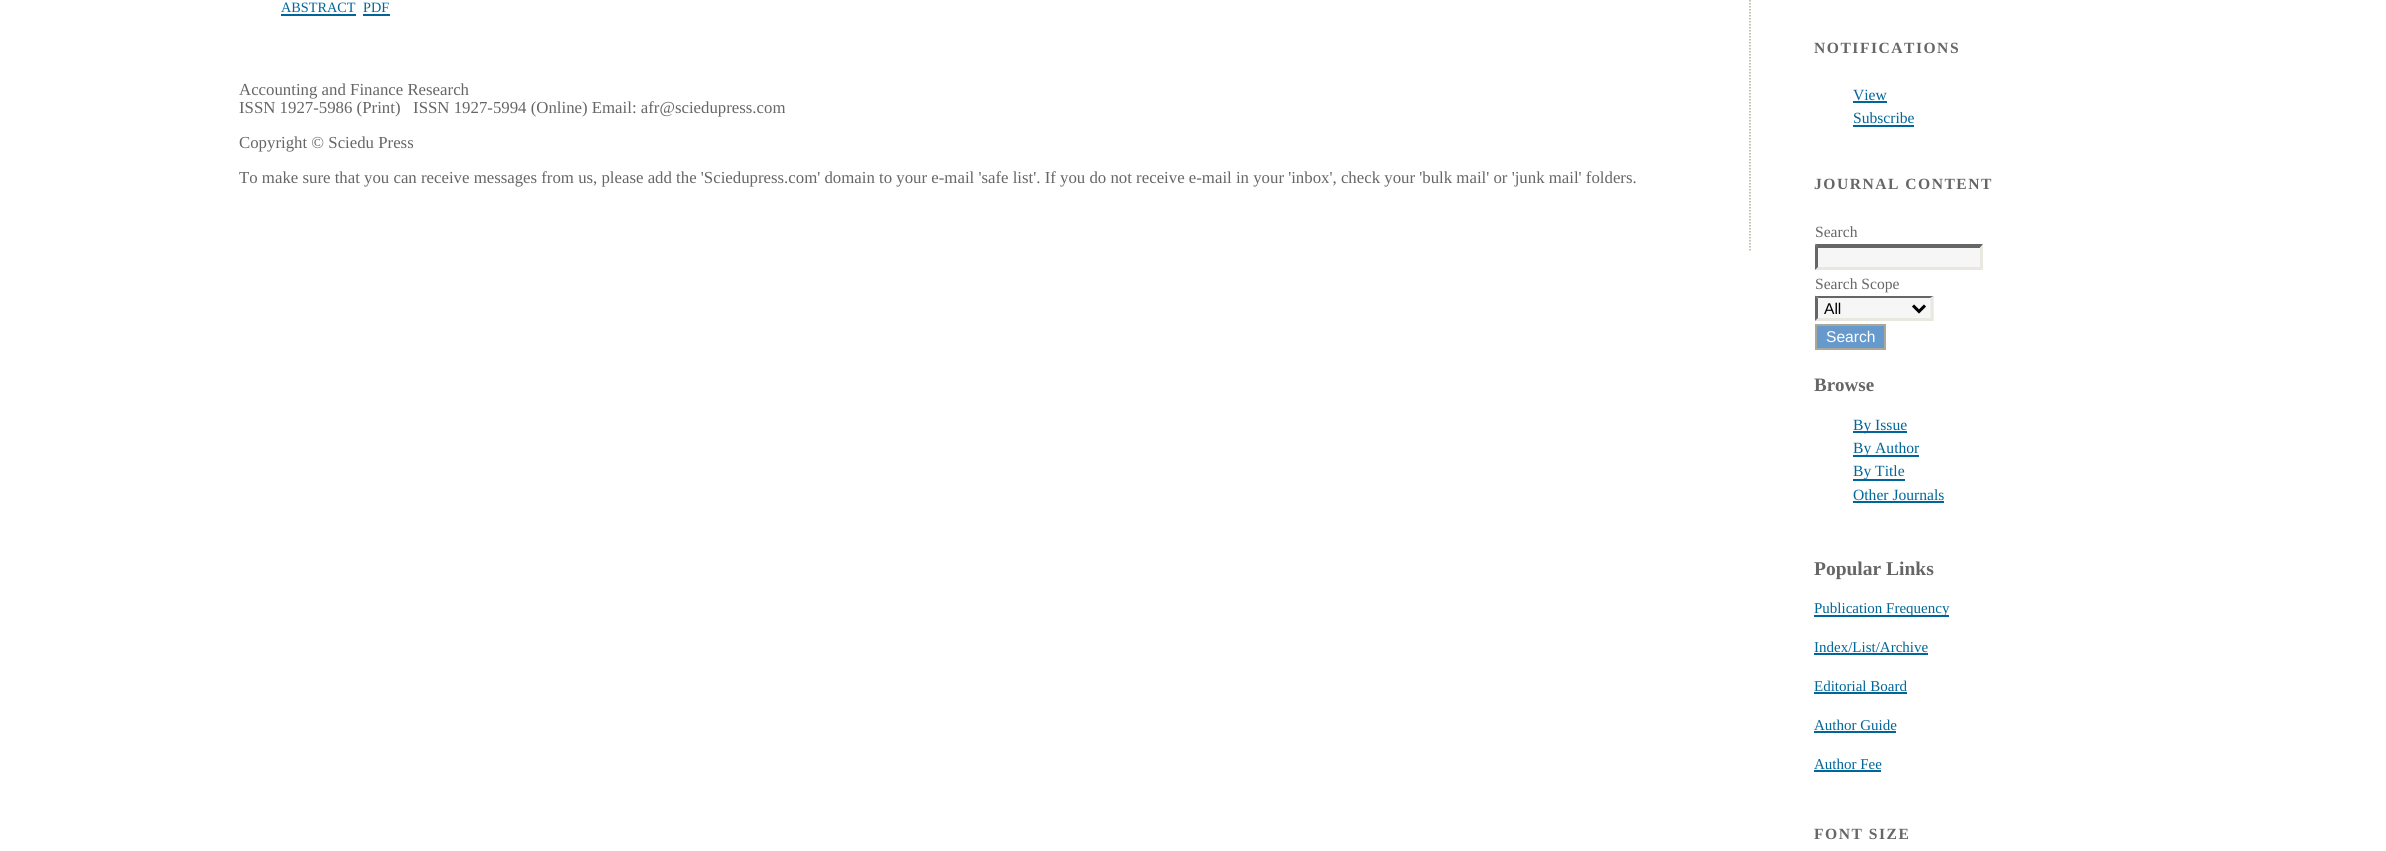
#include <cairo.h>
#include <math.h>
#include <stddef.h>


static void spaced_text(cairo_t *cr, double x, double y, const char *s, double letter, double word) {
    cairo_move_to(cr, x, y);
    while (*s) {
        char ch[5] = {0};
        int n = 0;
        do ch[n++] = *s++; while ((*s & 0xC0) == 0x80);
        cairo_show_text(cr, ch);
        cairo_rel_move_to(cr, letter + word * (*ch == ' '), 0);
    }
}

int main(void) {
    cairo_surface_t *surface = cairo_image_surface_create(CAIRO_FORMAT_RGB24, 2386, 851);
    cairo_t *cr = cairo_create(surface);
    cairo_font_options_t *options = cairo_font_options_create();
    cairo_font_options_set_hint_metrics(options, CAIRO_HINT_METRICS_OFF);
    cairo_font_options_set_hint_style(options, CAIRO_HINT_STYLE_NONE);
    cairo_set_font_options(cr, options);
    cairo_set_miter_limit(cr, 4);
    cairo_set_source_rgb(cr, 1, 1, 1);
    cairo_paint(cr);
    cairo_new_path(cr);
    cairo_move_to(cr, 1750, -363);
    cairo_line_to(cr, 1750, 250.5);
    cairo_set_source_rgb(cr, 0.675, 0.675, 0.608);
    cairo_set_line_width(cr, 1.5);
    cairo_set_dash(cr, (double[]){1.5, 1.5}, 2, 0);
    cairo_stroke(cr);
    cairo_select_font_face(cr, "Liberation Serif", CAIRO_FONT_SLANT_NORMAL, CAIRO_FONT_WEIGHT_NORMAL);
    cairo_set_font_size(cr, 14.25);
    cairo_set_source_rgb(cr, 0, 0.4, 0.6);
    cairo_move_to(cr, 281, 12);
    cairo_show_text(cr, "ABSTRACT");
    cairo_rectangle(cr, 281, 14, 75, 2);
    cairo_fill(cr);
    cairo_move_to(cr, 363, 12);
    cairo_show_text(cr, "PDF");
    cairo_rectangle(cr, 363, 14, 27, 2);
    cairo_fill(cr);
    cairo_set_font_size(cr, 16.8);
    cairo_set_source_rgb(cr, 0.4, 0.4, 0.4);
    cairo_move_to(cr, 239, 95);
    cairo_show_text(cr, "Accounting and Finance Research");
    cairo_move_to(cr, 239, 113);
    cairo_show_text(cr, "ISSN 1927-5986 (Print)   ISSN 1927-5994 (Online) Email: afr@sciedupress.com");
    cairo_move_to(cr, 239, 148);
    cairo_show_text(cr, "Copyright © Sciedu Press");
    cairo_move_to(cr, 239, 183);
    cairo_show_text(cr, "To make sure that you can receive messages from us, please add the 'Sciedupress.com' domain to your e-mail 'safe list'. If you do not receive e-mail in your 'inbox', check your 'bulk mail' or 'junk mail' folders.");
    cairo_select_font_face(cr, "Liberation Serif", CAIRO_FONT_SLANT_NORMAL, CAIRO_FONT_WEIGHT_BOLD);
    cairo_set_font_size(cr, 15.6);
    spaced_text(cr, 1814, 53, "NOTIFICATIONS", 1.5, 0);
    cairo_select_font_face(cr, "Liberation Serif", CAIRO_FONT_SLANT_NORMAL, CAIRO_FONT_WEIGHT_NORMAL);
    cairo_set_source_rgb(cr, 0, 0.4, 0.6);
    cairo_move_to(cr, 1853, 100);
    cairo_show_text(cr, "View");
    cairo_rectangle(cr, 1853, 101, 34, 2);
    cairo_fill(cr);
    cairo_move_to(cr, 1853, 123);
    cairo_show_text(cr, "Subscribe");
    cairo_rectangle(cr, 1853, 125, 61, 2);
    cairo_fill(cr);
    cairo_select_font_face(cr, "Liberation Serif", CAIRO_FONT_SLANT_NORMAL, CAIRO_FONT_WEIGHT_BOLD);
    cairo_set_source_rgb(cr, 0.4, 0.4, 0.4);
    spaced_text(cr, 1814, 189, "JOURNAL CONTENT", 1.5, 0);
    cairo_select_font_face(cr, "Liberation Serif", CAIRO_FONT_SLANT_NORMAL, CAIRO_FONT_WEIGHT_NORMAL);
    cairo_move_to(cr, 1815, 237);
    cairo_show_text(cr, "Search");
    cairo_set_source_rgb(cr, 0.961, 0.961, 0.961);
    cairo_rectangle(cr, 1815, 245, 168, 25);
    cairo_fill(cr);
    cairo_set_source_rgb(cr, 0.4, 0.4, 0.4);
    cairo_new_path(cr);
    cairo_move_to(cr, 1815, 244);
    cairo_line_to(cr, 1983, 244);
    cairo_line_to(cr, 1980, 248);
    cairo_line_to(cr, 1818, 248);
    cairo_close_path(cr);
    cairo_fill(cr);
    cairo_set_source_rgb(cr, 0.91, 0.91, 0.882);
    cairo_new_path(cr);
    cairo_move_to(cr, 1983, 244.5);
    cairo_line_to(cr, 1983, 270);
    cairo_line_to(cr, 1980, 267);
    cairo_line_to(cr, 1980, 247.5);
    cairo_close_path(cr);
    cairo_fill(cr);
    cairo_new_path(cr);
    cairo_move_to(cr, 1983, 270);
    cairo_line_to(cr, 1815, 270);
    cairo_line_to(cr, 1818, 267);
    cairo_line_to(cr, 1980, 267);
    cairo_close_path(cr);
    cairo_fill(cr);
    cairo_set_source_rgb(cr, 0.4, 0.4, 0.4);
    cairo_new_path(cr);
    cairo_move_to(cr, 1815, 270);
    cairo_line_to(cr, 1815, 244.5);
    cairo_line_to(cr, 1818, 247.5);
    cairo_line_to(cr, 1818, 267);
    cairo_close_path(cr);
    cairo_fill(cr);
    cairo_move_to(cr, 1815, 289);
    cairo_show_text(cr, "Search Scope");
    cairo_set_source_rgb(cr, 0.961, 0.961, 0.961);
    cairo_rectangle(cr, 1815, 296, 119, 25);
    cairo_fill(cr);
    cairo_set_source_rgb(cr, 0.4, 0.4, 0.4);
    cairo_new_path(cr);
    cairo_move_to(cr, 1815, 296);
    cairo_line_to(cr, 1934, 296);
    cairo_line_to(cr, 1930, 298);
    cairo_line_to(cr, 1818, 298);
    cairo_close_path(cr);
    cairo_fill(cr);
    cairo_set_source_rgb(cr, 0.91, 0.91, 0.882);
    cairo_new_path(cr);
    cairo_move_to(cr, 1933.5, 295.5);
    cairo_line_to(cr, 1933.5, 321);
    cairo_line_to(cr, 1930.5, 318);
    cairo_line_to(cr, 1930.5, 298.5);
    cairo_close_path(cr);
    cairo_fill(cr);
    cairo_new_path(cr);
    cairo_move_to(cr, 1934, 321);
    cairo_line_to(cr, 1815, 321);
    cairo_line_to(cr, 1818, 318);
    cairo_line_to(cr, 1930, 318);
    cairo_close_path(cr);
    cairo_fill(cr);
    cairo_set_source_rgb(cr, 0.4, 0.4, 0.4);
    cairo_new_path(cr);
    cairo_move_to(cr, 1815, 321);
    cairo_line_to(cr, 1815, 295.5);
    cairo_line_to(cr, 1818, 298.5);
    cairo_line_to(cr, 1818, 318);
    cairo_close_path(cr);
    cairo_fill(cr);
    cairo_new_path(cr);
    cairo_move_to(cr, 1913, 305.5);
    cairo_line_to(cr, 1919, 311.5);
    cairo_line_to(cr, 1925, 305.5);
    cairo_set_source_rgb(cr, 0, 0, 0);
    cairo_set_line_width(cr, 3);
    cairo_set_dash(cr, NULL, 0, 0);
    cairo_stroke(cr);
    cairo_select_font_face(cr, "Liberation Sans", CAIRO_FONT_SLANT_NORMAL, CAIRO_FONT_WEIGHT_NORMAL);
    cairo_move_to(cr, 1824, 314);
    cairo_show_text(cr, "All");
    cairo_set_source_rgb(cr, 0.4, 0.6, 0.8);
    cairo_rectangle(cr, 1816, 325, 69, 24);
    cairo_fill_preserve(cr);
    cairo_set_source_rgb(cr, 0.675, 0.659, 0.6);
    cairo_set_line_width(cr, 2);
    cairo_stroke(cr);
    cairo_set_source_rgb(cr, 1, 1, 1);
    cairo_move_to(cr, 1826, 342);
    cairo_show_text(cr, "Search");
    cairo_select_font_face(cr, "Liberation Serif", CAIRO_FONT_SLANT_NORMAL, CAIRO_FONT_WEIGHT_BOLD);
    cairo_set_font_size(cr, 19);
    cairo_set_source_rgb(cr, 0.4, 0.4, 0.4);
    cairo_move_to(cr, 1814, 391);
    cairo_show_text(cr, "Browse");
    cairo_set_source_rgb(cr, 0, 0.4, 0.6);
    cairo_rectangle(cr, 1853, 431, 54, 2);
    cairo_fill(cr);
    cairo_select_font_face(cr, "Liberation Serif", CAIRO_FONT_SLANT_NORMAL, CAIRO_FONT_WEIGHT_NORMAL);
    cairo_set_font_size(cr, 15.6);
    cairo_move_to(cr, 1853, 430);
    cairo_show_text(cr, "By Issue");
    cairo_rectangle(cr, 1853, 455, 66, 2);
    cairo_fill(cr);
    cairo_move_to(cr, 1853, 453);
    cairo_show_text(cr, "By Author");
    cairo_rectangle(cr, 1853, 479, 52, 2);
    cairo_fill(cr);
    cairo_move_to(cr, 1853, 476);
    cairo_show_text(cr, "By Title");
    cairo_move_to(cr, 1853, 500);
    cairo_show_text(cr, "Other Journals");
    cairo_rectangle(cr, 1853, 501, 91, 2);
    cairo_fill(cr);
    cairo_select_font_face(cr, "Liberation Serif", CAIRO_FONT_SLANT_NORMAL, CAIRO_FONT_WEIGHT_BOLD);
    cairo_set_font_size(cr, 19.5);
    cairo_set_source_rgb(cr, 0.4, 0.4, 0.4);
    cairo_move_to(cr, 1814, 575);
    cairo_show_text(cr, "Popular Links");
    cairo_set_source_rgb(cr, 0, 0.4, 0.6);
    cairo_rectangle(cr, 1814, 615, 135, 2);
    cairo_fill(cr);
    cairo_select_font_face(cr, "Liberation Serif", CAIRO_FONT_SLANT_NORMAL, CAIRO_FONT_WEIGHT_NORMAL);
    cairo_set_font_size(cr, 15);
    cairo_move_to(cr, 1814, 613);
    cairo_show_text(cr, "Publication Frequency");
    cairo_move_to(cr, 1814, 652);
    cairo_show_text(cr, "Index/List/Archive");
    cairo_rectangle(cr, 1814, 653, 114, 2);
    cairo_fill(cr);
    cairo_move_to(cr, 1814, 691);
    cairo_show_text(cr, "Editorial Board");
    cairo_rectangle(cr, 1814, 692, 93, 2);
    cairo_fill(cr);
    cairo_move_to(cr, 1814, 730);
    cairo_show_text(cr, "Author Guide");
    cairo_rectangle(cr, 1814, 731, 82, 2);
    cairo_fill(cr);
    cairo_move_to(cr, 1814, 769);
    cairo_show_text(cr, "Author Fee");
    cairo_rectangle(cr, 1814, 770, 67, 2);
    cairo_fill(cr);
    cairo_select_font_face(cr, "Liberation Serif", CAIRO_FONT_SLANT_NORMAL, CAIRO_FONT_WEIGHT_BOLD);
    cairo_set_font_size(cr, 15.6);
    cairo_set_source_rgb(cr, 0.4, 0.4, 0.4);
    spaced_text(cr, 1814, 839, "FONT SIZE", 1.5, 0);
    cairo_surface_write_to_png(surface, "page.png");
    cairo_font_options_destroy(options);
    cairo_destroy(cr);
    cairo_surface_destroy(surface);
    return 0;
}
